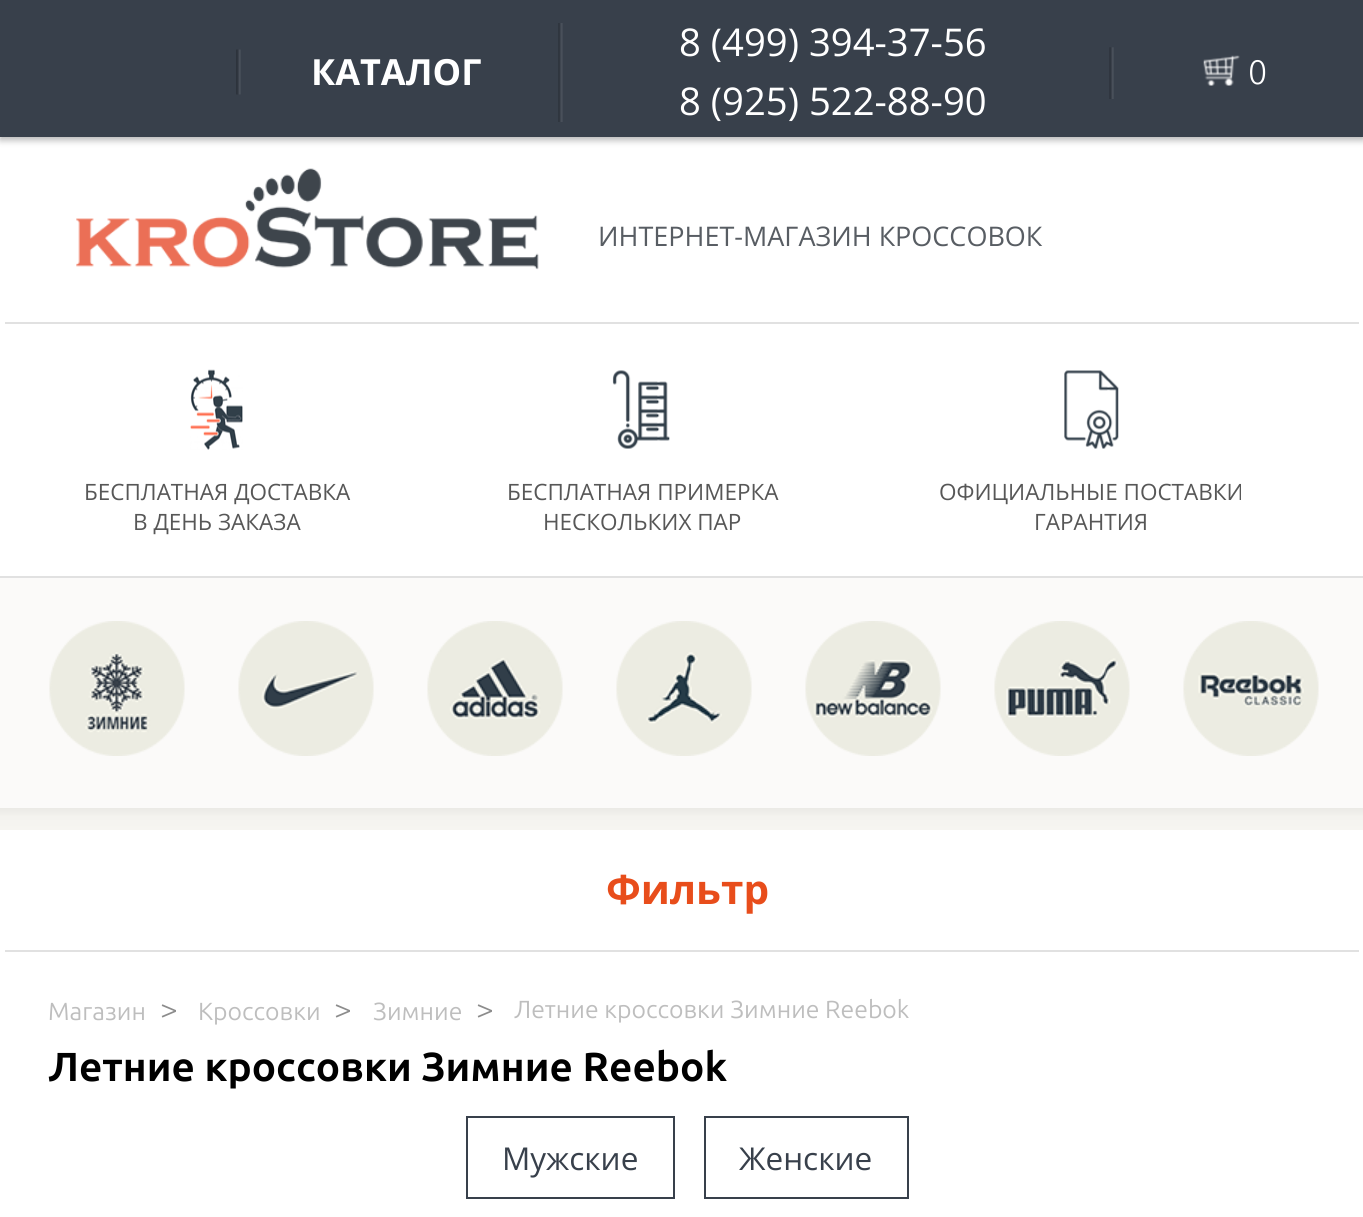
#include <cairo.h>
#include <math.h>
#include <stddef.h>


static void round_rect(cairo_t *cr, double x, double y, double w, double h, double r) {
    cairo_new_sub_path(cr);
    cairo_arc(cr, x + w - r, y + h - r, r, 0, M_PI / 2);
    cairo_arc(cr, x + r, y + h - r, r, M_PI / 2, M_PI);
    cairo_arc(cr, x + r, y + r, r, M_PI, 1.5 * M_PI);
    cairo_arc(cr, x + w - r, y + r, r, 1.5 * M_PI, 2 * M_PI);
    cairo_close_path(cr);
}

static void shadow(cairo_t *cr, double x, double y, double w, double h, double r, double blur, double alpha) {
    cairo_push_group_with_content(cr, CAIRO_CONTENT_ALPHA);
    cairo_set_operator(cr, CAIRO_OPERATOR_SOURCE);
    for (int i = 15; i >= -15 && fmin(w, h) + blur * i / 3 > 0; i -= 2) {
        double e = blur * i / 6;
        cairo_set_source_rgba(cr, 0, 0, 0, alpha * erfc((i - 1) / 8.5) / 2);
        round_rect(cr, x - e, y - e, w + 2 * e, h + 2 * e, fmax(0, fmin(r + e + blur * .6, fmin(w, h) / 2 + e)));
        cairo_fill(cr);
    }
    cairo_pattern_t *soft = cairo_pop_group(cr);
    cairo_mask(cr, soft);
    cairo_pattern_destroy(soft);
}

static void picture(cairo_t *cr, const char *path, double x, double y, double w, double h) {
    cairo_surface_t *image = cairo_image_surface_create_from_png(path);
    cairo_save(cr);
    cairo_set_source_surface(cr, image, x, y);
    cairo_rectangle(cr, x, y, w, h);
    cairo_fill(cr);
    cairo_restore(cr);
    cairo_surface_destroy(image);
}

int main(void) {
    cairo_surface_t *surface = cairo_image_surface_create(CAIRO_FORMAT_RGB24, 1363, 1217);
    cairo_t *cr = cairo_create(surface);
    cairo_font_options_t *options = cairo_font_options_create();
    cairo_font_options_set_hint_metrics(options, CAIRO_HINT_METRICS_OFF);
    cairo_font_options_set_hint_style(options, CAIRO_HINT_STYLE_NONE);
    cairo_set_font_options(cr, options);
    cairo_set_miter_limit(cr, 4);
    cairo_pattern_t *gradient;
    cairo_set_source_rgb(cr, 1, 1, 1);
    cairo_paint(cr);
    cairo_set_source_rgb(cr, 0, 0, 0);
    shadow(cr, 0, 2, 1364, 138, 0, 3.5, 0.3);
    cairo_set_source_rgb(cr, 0.22, 0.251, 0.294);
    cairo_rectangle(cr, 0, 0, 1363, 137);
    cairo_fill(cr);
    picture(cr, "img1.png", 236, 49, 5, 46);
    cairo_select_font_face(cr, "Open Sans", CAIRO_FONT_SLANT_NORMAL, CAIRO_FONT_WEIGHT_BOLD);
    cairo_set_font_size(cr, 36);
    cairo_set_source_rgb(cr, 1, 1, 1);
    cairo_move_to(cr, 311, 85);
    cairo_show_text(cr, "КАТАЛОГ");
    picture(cr, "img2.png", 558, 23, 5, 99);
    cairo_select_font_face(cr, "Open Sans", CAIRO_FONT_SLANT_NORMAL, CAIRO_FONT_WEIGHT_NORMAL);
    cairo_set_font_size(cr, 38.25);
    cairo_move_to(cr, 679, 56);
    cairo_show_text(cr, "8 (499) 394-37-56");
    cairo_move_to(cr, 679, 115);
    cairo_show_text(cr, "8 (925) 522-88-90");
    picture(cr, "img3.png", 1109, 47, 5, 52);
    picture(cr, "img4.png", 1203, 55, 37, 31);
    cairo_select_font_face(cr, "Ubuntu Light", CAIRO_FONT_SLANT_NORMAL, CAIRO_FONT_WEIGHT_NORMAL);
    cairo_set_font_size(cr, 34);
    cairo_move_to(cr, 1248, 84);
    cairo_show_text(cr, "0");
    cairo_set_source_rgb(cr, 0.882, 0.882, 0.882);
    cairo_rectangle(cr, 5, 322, 1354, 2);
    cairo_fill(cr);
    picture(cr, "img5.png", 76, 168, 463, 102);
    cairo_select_font_face(cr, "Open Sans", CAIRO_FONT_SLANT_NORMAL, CAIRO_FONT_WEIGHT_NORMAL);
    cairo_set_font_size(cr, 27);
    cairo_set_source_rgb(cr, 0.345, 0.365, 0.388);
    cairo_move_to(cr, 598, 246);
    cairo_show_text(cr, "ИНТЕРНЕТ-МАГАЗИН КРОССОВОК");
    picture(cr, "img6.png", 190, 369, 53, 81);
    cairo_set_font_size(cr, 22.5);
    cairo_set_source_rgb(cr, 0.341, 0.341, 0.341);
    cairo_move_to(cr, 84, 500);
    cairo_show_text(cr, "БЕСПЛАТНАЯ ДОСТАВКА");
    cairo_move_to(cr, 133, 530);
    cairo_show_text(cr, "В ДЕНЬ ЗАКАЗА");
    picture(cr, "img7.png", 612, 370, 58, 79);
    cairo_move_to(cr, 507, 500);
    cairo_show_text(cr, "БЕСПЛАТНАЯ ПРИМЕРКА");
    cairo_move_to(cr, 543, 530);
    cairo_show_text(cr, "НЕСКОЛЬКИХ ПАР");
    picture(cr, "img8.png", 1064, 370, 55, 79);
    cairo_move_to(cr, 939, 500);
    cairo_show_text(cr, "ОФИЦИАЛЬНЫЕ ПОСТАВКИ");
    cairo_move_to(cr, 1034, 530);
    cairo_show_text(cr, "ГАРАНТИЯ");
    cairo_set_source_rgb(cr, 0.984, 0.98, 0.973);
    cairo_rectangle(cr, 0, 578, 1363, 230);
    cairo_fill(cr);
    cairo_set_source_rgb(cr, 0.882, 0.882, 0.882);
    cairo_rectangle(cr, 0, 576, 1363, 2);
    cairo_fill(cr);
    picture(cr, "img9.png", 49, 621, 136, 135);
    picture(cr, "img10.png", 238, 621, 136, 135);
    picture(cr, "img11.png", 427, 621, 136, 135);
    picture(cr, "img12.png", 616, 621, 136, 135);
    picture(cr, "img13.png", 805, 621, 136, 135);
    picture(cr, "img14.png", 994, 621, 136, 135);
    picture(cr, "img15.png", 1183, 621, 136, 135);
    gradient = cairo_pattern_create_linear(682, 808, 682, 830);
    cairo_pattern_add_color_stop_rgba(gradient, 0, 0.918, 0.914, 0.898, 1);
    cairo_pattern_add_color_stop_rgba(gradient, 0.4, 0.957, 0.953, 0.937, 1);
    cairo_pattern_add_color_stop_rgba(gradient, 1, 0.965, 0.961, 0.945, 1);
    cairo_set_source(cr, gradient);
    cairo_pattern_destroy(gradient);
    cairo_rectangle(cr, 0, 808, 1363, 22);
    cairo_fill(cr);
    cairo_set_source_rgb(cr, 0.882, 0.882, 0.882);
    cairo_rectangle(cr, 5, 950, 1354, 2);
    cairo_fill(cr);
    cairo_select_font_face(cr, "Open Sans", CAIRO_FONT_SLANT_NORMAL, CAIRO_FONT_WEIGHT_BOLD);
    cairo_set_font_size(cr, 40.5);
    cairo_set_source_rgb(cr, 0.91, 0.302, 0.106);
    cairo_move_to(cr, 606, 904);
    cairo_show_text(cr, "Фильтр");
    cairo_select_font_face(cr, "Ubuntu", CAIRO_FONT_SLANT_NORMAL, CAIRO_FONT_WEIGHT_NORMAL);
    cairo_set_font_size(cr, 24.75);
    cairo_set_source_rgb(cr, 0.745, 0.745, 0.745);
    cairo_move_to(cr, 48, 1020);
    cairo_show_text(cr, "Магазин");
    cairo_select_font_face(cr, "Ubuntu Light", CAIRO_FONT_SLANT_NORMAL, CAIRO_FONT_WEIGHT_NORMAL);
    cairo_set_font_size(cr, 31.5);
    cairo_set_source_rgb(cr, 0.549, 0.549, 0.549);
    cairo_move_to(cr, 160, 1020);
    cairo_show_text(cr, ">");
    cairo_select_font_face(cr, "Ubuntu", CAIRO_FONT_SLANT_NORMAL, CAIRO_FONT_WEIGHT_NORMAL);
    cairo_set_font_size(cr, 24.75);
    cairo_set_source_rgb(cr, 0.745, 0.745, 0.745);
    cairo_move_to(cr, 198, 1020);
    cairo_show_text(cr, "Кроссовки");
    cairo_select_font_face(cr, "Ubuntu Light", CAIRO_FONT_SLANT_NORMAL, CAIRO_FONT_WEIGHT_NORMAL);
    cairo_set_font_size(cr, 31.5);
    cairo_set_source_rgb(cr, 0.549, 0.549, 0.549);
    cairo_move_to(cr, 334, 1020);
    cairo_show_text(cr, ">");
    cairo_select_font_face(cr, "Ubuntu", CAIRO_FONT_SLANT_NORMAL, CAIRO_FONT_WEIGHT_NORMAL);
    cairo_set_font_size(cr, 24.75);
    cairo_set_source_rgb(cr, 0.745, 0.745, 0.745);
    cairo_move_to(cr, 373, 1020);
    cairo_show_text(cr, "Зимние");
    cairo_select_font_face(cr, "Ubuntu Light", CAIRO_FONT_SLANT_NORMAL, CAIRO_FONT_WEIGHT_NORMAL);
    cairo_set_font_size(cr, 31.5);
    cairo_set_source_rgb(cr, 0.549, 0.549, 0.549);
    cairo_move_to(cr, 476, 1020);
    cairo_show_text(cr, ">");
    cairo_select_font_face(cr, "Ubuntu", CAIRO_FONT_SLANT_NORMAL, CAIRO_FONT_WEIGHT_NORMAL);
    cairo_set_font_size(cr, 24.75);
    cairo_set_source_rgb(cr, 0.745, 0.745, 0.745);
    cairo_move_to(cr, 514, 1018);
    cairo_show_text(cr, "Летние кроссовки Зимние Reebok");
    cairo_select_font_face(cr, "Ubuntu", CAIRO_FONT_SLANT_NORMAL, CAIRO_FONT_WEIGHT_BOLD);
    cairo_set_font_size(cr, 40.5);
    cairo_set_source_rgb(cr, 0, 0, 0);
    cairo_move_to(cr, 48, 1081);
    cairo_show_text(cr, "Летние кроссовки Зимние Reebok");
    cairo_rectangle(cr, 467, 1117, 207, 81);
    cairo_set_source_rgb(cr, 0.22, 0.251, 0.294);
    cairo_stroke(cr);
    cairo_select_font_face(cr, "Open Sans", CAIRO_FONT_SLANT_NORMAL, CAIRO_FONT_WEIGHT_NORMAL);
    cairo_set_font_size(cr, 31.5);
    cairo_move_to(cr, 502, 1170);
    cairo_show_text(cr, "Мужские");
    cairo_rectangle(cr, 705, 1117, 203, 81);
    cairo_stroke(cr);
    cairo_move_to(cr, 739, 1170);
    cairo_show_text(cr, "Женские");
    cairo_surface_write_to_png(surface, "page.png");
    cairo_font_options_destroy(options);
    cairo_destroy(cr);
    cairo_surface_destroy(surface);
    return 0;
}
